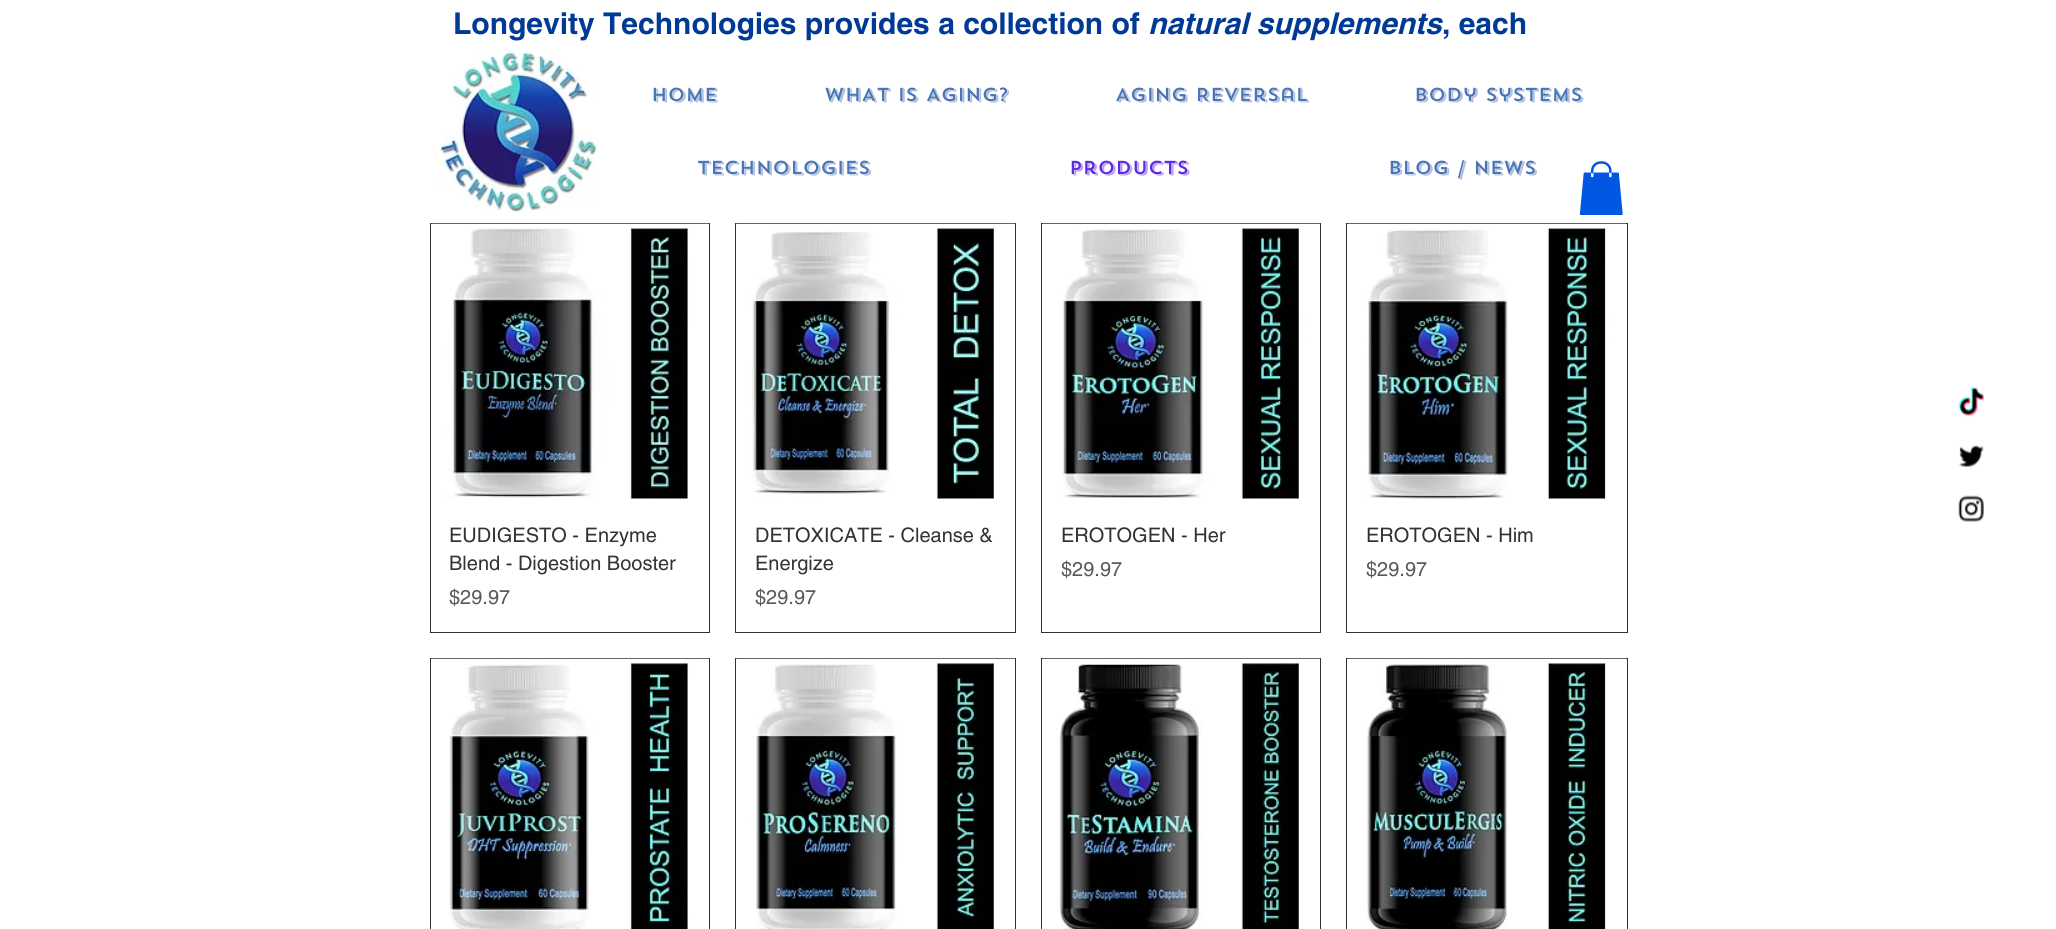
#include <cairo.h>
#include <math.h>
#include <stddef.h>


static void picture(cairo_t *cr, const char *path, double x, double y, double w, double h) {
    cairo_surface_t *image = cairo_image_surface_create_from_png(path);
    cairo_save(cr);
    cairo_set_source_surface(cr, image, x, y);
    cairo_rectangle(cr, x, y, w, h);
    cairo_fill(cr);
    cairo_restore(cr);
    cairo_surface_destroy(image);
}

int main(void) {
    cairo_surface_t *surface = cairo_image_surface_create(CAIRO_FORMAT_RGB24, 2056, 929);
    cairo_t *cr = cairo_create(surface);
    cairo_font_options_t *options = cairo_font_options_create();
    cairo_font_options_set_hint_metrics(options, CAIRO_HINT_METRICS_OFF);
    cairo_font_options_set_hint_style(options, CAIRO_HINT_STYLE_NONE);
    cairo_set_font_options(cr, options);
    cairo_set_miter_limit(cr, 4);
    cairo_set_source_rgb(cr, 1, 1, 1);
    cairo_paint(cr);
    cairo_select_font_face(cr, "helvetica", CAIRO_FONT_SLANT_NORMAL, CAIRO_FONT_WEIGHT_BOLD);
    cairo_set_font_size(cr, 30);
    cairo_set_source_rgb(cr, 0, 0.227, 0.588);
    cairo_move_to(cr, 453, 34);
    cairo_show_text(cr, "Longevity Technologies provides a collection of");
    cairo_select_font_face(cr, "helvetica", CAIRO_FONT_SLANT_ITALIC, CAIRO_FONT_WEIGHT_BOLD);
    cairo_move_to(cr, 1148, 34);
    cairo_show_text(cr, "natural supplements");
    cairo_select_font_face(cr, "helvetica", CAIRO_FONT_SLANT_NORMAL, CAIRO_FONT_WEIGHT_BOLD);
    cairo_move_to(cr, 1442, 34);
    cairo_show_text(cr, ", each");
    cairo_rectangle(cr, 430.5, 223.5, 279, 409);
    cairo_set_source_rgb(cr, 0.2, 0.2, 0.2);
    cairo_set_line_width(cr, 1);
    cairo_stroke(cr);
    picture(cr, "img1.png", 431, 223, 278, 276);
    cairo_select_font_face(cr, "helvetica", CAIRO_FONT_SLANT_NORMAL, CAIRO_FONT_WEIGHT_NORMAL);
    cairo_set_font_size(cr, 20);
    cairo_move_to(cr, 449, 542);
    cairo_show_text(cr, "EUDIGESTO - Enzyme");
    cairo_move_to(cr, 449, 570);
    cairo_show_text(cr, "Blend - Digestion Booster");
    cairo_set_source_rgb(cr, 0.349, 0.349, 0.349);
    cairo_move_to(cr, 449, 604);
    cairo_show_text(cr, "$29.97");
    cairo_rectangle(cr, 735.5, 223.5, 280, 409);
    cairo_set_source_rgb(cr, 0.2, 0.2, 0.2);
    cairo_stroke(cr);
    picture(cr, "img2.png", 736, 223, 279, 276);
    cairo_move_to(cr, 755, 542);
    cairo_show_text(cr, "DETOXICATE - Cleanse &");
    cairo_move_to(cr, 755, 570);
    cairo_show_text(cr, "Energize");
    cairo_set_source_rgb(cr, 0.349, 0.349, 0.349);
    cairo_move_to(cr, 755, 604);
    cairo_show_text(cr, "$29.97");
    cairo_rectangle(cr, 1041.5, 223.5, 279, 409);
    cairo_set_source_rgb(cr, 0.2, 0.2, 0.2);
    cairo_stroke(cr);
    picture(cr, "img3.png", 1042, 223, 278, 276);
    cairo_move_to(cr, 1061, 542);
    cairo_show_text(cr, "EROTOGEN - Her");
    cairo_set_source_rgb(cr, 0.349, 0.349, 0.349);
    cairo_move_to(cr, 1061, 576);
    cairo_show_text(cr, "$29.97");
    cairo_rectangle(cr, 1346.5, 223.5, 281, 409);
    cairo_set_source_rgb(cr, 0.2, 0.2, 0.2);
    cairo_stroke(cr);
    picture(cr, "img4.png", 1347, 223, 279, 277);
    cairo_move_to(cr, 1366, 542);
    cairo_show_text(cr, "EROTOGEN - Him");
    cairo_set_source_rgb(cr, 0.349, 0.349, 0.349);
    cairo_move_to(cr, 1366, 576);
    cairo_show_text(cr, "$29.97");
    cairo_rectangle(cr, 430.5, 658.5, 279, 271);
    cairo_set_source_rgb(cr, 0.2, 0.2, 0.2);
    cairo_stroke(cr);
    picture(cr, "img5.png", 431, 658, 278, 271);
    cairo_rectangle(cr, 735.5, 658.5, 280, 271);
    cairo_stroke(cr);
    picture(cr, "img6.png", 736, 658, 279, 271);
    cairo_rectangle(cr, 1041.5, 658.5, 279, 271);
    cairo_stroke(cr);
    picture(cr, "img7.png", 1042, 658, 278, 271);
    cairo_rectangle(cr, 1346.5, 658.5, 281, 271);
    cairo_stroke(cr);
    picture(cr, "img8.png", 1347, 658, 279, 271);
    picture(cr, "img9.png", 434, 48, 165, 165);
    cairo_select_font_face(cr, "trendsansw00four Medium", CAIRO_FONT_SLANT_NORMAL, CAIRO_FONT_WEIGHT_NORMAL);
    cairo_set_font_size(cr, 18.75);
    cairo_set_source_rgb(cr, 0.302, 0.459, 0.714);
    cairo_move_to(cr, 651, 101);
    cairo_show_text(cr, "HOME");
    cairo_move_to(cr, 824, 101);
    cairo_show_text(cr, "WHAT IS AGING?");
    cairo_move_to(cr, 1115, 101);
    cairo_show_text(cr, "Aging Reversal");
    cairo_move_to(cr, 1414, 101);
    cairo_show_text(cr, "Body systems");
    cairo_move_to(cr, 697, 174);
    cairo_show_text(cr, "Technologies");
    cairo_set_source_rgb(cr, 0.373, 0.169, 0.878);
    cairo_move_to(cr, 1069, 174);
    cairo_show_text(cr, "Products");
    cairo_set_source_rgb(cr, 0.302, 0.459, 0.714);
    cairo_move_to(cr, 1388, 174);
    cairo_show_text(cr, "BLOG / NEWS");
    picture(cr, "img10.png", 1579, 161, 44, 54);
    picture(cr, "img11.png", 1958, 387, 26, 30);
    picture(cr, "img12.png", 1959, 445, 25, 23);
    picture(cr, "img13.png", 1958, 495, 26, 27);
    cairo_surface_write_to_png(surface, "page.png");
    cairo_font_options_destroy(options);
    cairo_destroy(cr);
    cairo_surface_destroy(surface);
    return 0;
}
